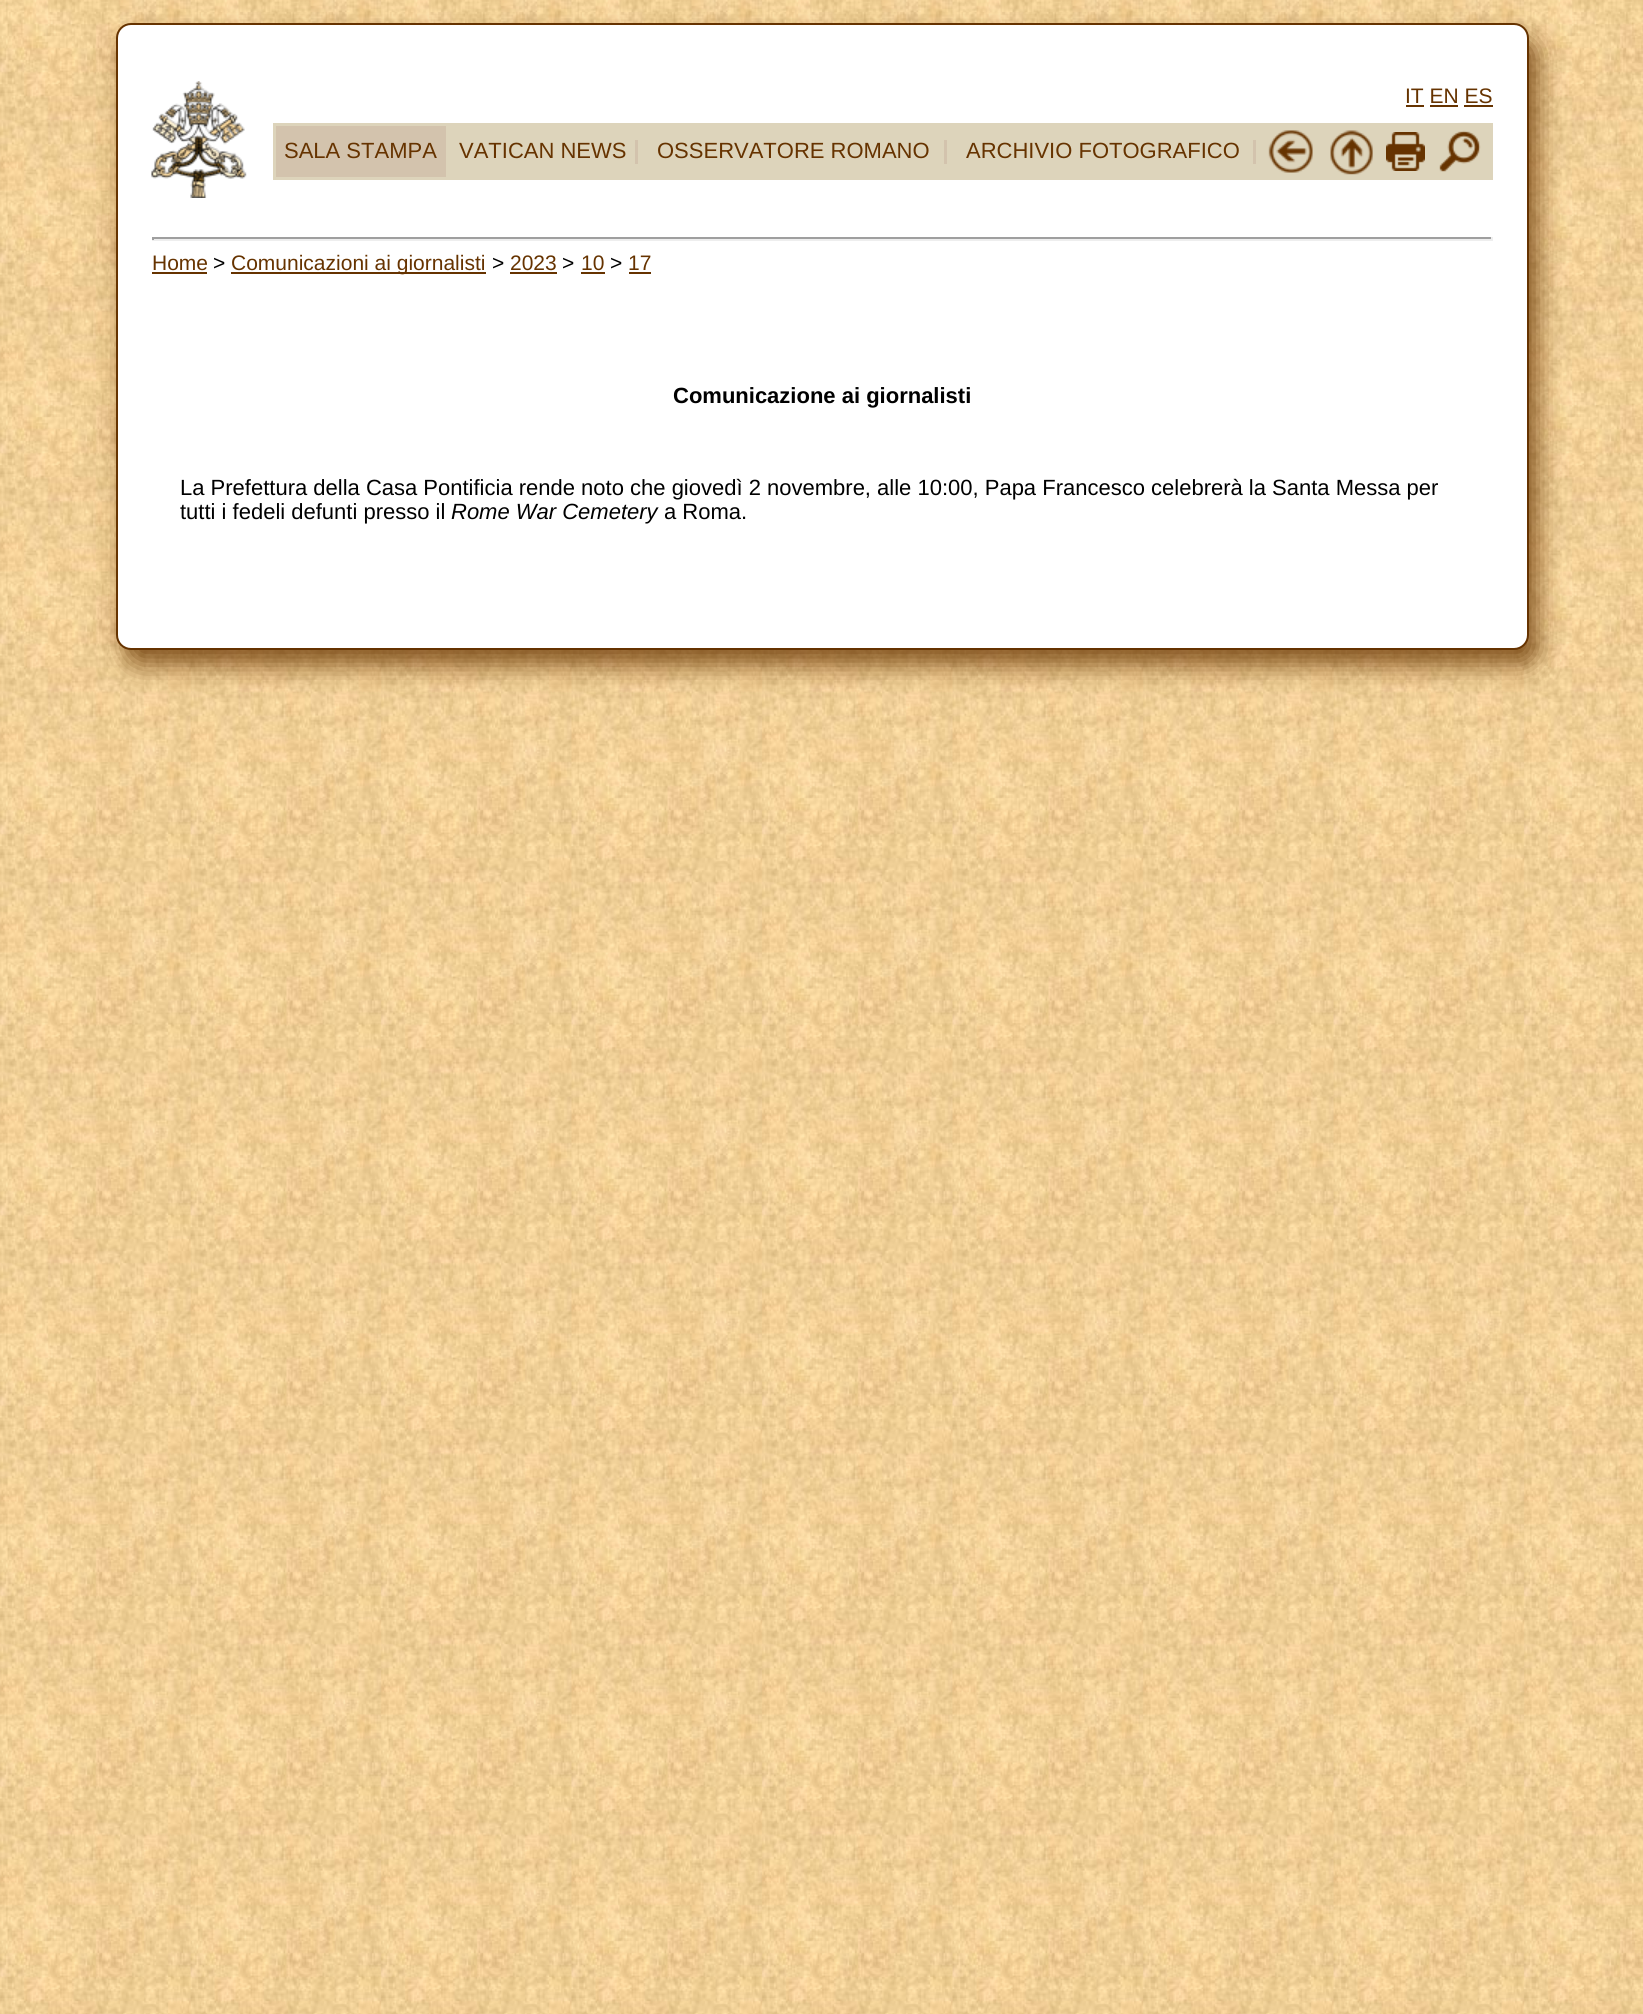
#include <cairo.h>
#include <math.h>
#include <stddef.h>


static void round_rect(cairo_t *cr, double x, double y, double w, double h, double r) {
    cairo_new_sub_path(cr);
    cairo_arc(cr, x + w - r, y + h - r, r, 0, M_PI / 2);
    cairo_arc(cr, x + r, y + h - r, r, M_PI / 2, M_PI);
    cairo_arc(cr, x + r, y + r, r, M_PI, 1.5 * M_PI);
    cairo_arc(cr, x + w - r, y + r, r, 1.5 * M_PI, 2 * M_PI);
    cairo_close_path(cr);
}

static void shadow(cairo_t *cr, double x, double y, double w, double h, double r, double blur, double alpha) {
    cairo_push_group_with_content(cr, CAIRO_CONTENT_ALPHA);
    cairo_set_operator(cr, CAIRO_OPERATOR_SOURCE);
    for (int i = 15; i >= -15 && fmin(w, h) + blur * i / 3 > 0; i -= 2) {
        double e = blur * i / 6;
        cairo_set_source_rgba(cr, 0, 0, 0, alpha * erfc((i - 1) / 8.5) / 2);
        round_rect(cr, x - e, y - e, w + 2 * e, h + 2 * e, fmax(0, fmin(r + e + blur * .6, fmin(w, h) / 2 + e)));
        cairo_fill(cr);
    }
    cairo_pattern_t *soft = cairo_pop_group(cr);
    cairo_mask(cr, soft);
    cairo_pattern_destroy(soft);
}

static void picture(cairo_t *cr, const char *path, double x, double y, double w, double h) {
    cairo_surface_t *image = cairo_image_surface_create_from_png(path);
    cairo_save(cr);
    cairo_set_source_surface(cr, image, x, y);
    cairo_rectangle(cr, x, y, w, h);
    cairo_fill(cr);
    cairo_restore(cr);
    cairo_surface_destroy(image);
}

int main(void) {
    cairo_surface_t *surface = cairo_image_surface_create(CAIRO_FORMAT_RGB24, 1643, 2014);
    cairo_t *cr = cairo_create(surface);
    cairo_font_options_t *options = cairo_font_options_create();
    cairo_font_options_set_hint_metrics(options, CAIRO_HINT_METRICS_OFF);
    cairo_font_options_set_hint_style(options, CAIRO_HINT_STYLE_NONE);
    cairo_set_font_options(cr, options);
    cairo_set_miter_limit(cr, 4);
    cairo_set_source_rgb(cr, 1, 1, 1);
    cairo_paint(cr);
    picture(cr, "img1.png", 0, 0, 1643, 2014);
    cairo_set_source_rgb(cr, 0.4, 0.2, 0);
    shadow(cr, 125, 38, 1413, 627, 15, 13, 0.8);
    cairo_set_source_rgb(cr, 1, 1, 1);
    round_rect(cr, 117, 24, 1411, 625, 14);
    cairo_fill_preserve(cr);
    cairo_set_source_rgb(cr, 0.4, 0.2, 0);
    cairo_stroke(cr);
    picture(cr, "img2.png", 151, 81, 96, 117);
    cairo_select_font_face(cr, "Liberation Sans", CAIRO_FONT_SLANT_NORMAL, CAIRO_FONT_WEIGHT_NORMAL);
    cairo_set_font_size(cr, 21);
    cairo_move_to(cr, 1405, 103);
    cairo_show_text(cr, "IT EN ES");
    cairo_rectangle(cr, 1406, 105, 18, 2);
    cairo_fill(cr);
    cairo_rectangle(cr, 1430, 105, 28, 2);
    cairo_fill(cr);
    cairo_rectangle(cr, 1464, 105, 29, 2);
    cairo_fill(cr);
    cairo_set_source_rgb(cr, 0.867, 0.831, 0.733);
    cairo_rectangle(cr, 273, 123, 1220, 57);
    cairo_fill(cr);
    cairo_set_source_rgb(cr, 0.827, 0.765, 0.678);
    cairo_rectangle(cr, 276, 126, 170, 51);
    cairo_fill(cr);
    cairo_set_font_size(cr, 22);
    cairo_set_source_rgb(cr, 0.4, 0.2, 0);
    cairo_move_to(cr, 284, 158);
    cairo_show_text(cr, "SALA STAMPA");
    cairo_set_source_rgb(cr, 0.827, 0.765, 0.678);
    cairo_rectangle(cr, 635, 140, 3, 24);
    cairo_fill(cr);
    cairo_set_source_rgb(cr, 0.4, 0.2, 0);
    cairo_move_to(cr, 459, 158);
    cairo_show_text(cr, "VATICAN NEWS");
    cairo_set_source_rgb(cr, 0.827, 0.765, 0.678);
    cairo_rectangle(cr, 944, 140, 3, 24);
    cairo_fill(cr);
    cairo_set_source_rgb(cr, 0.4, 0.2, 0);
    cairo_move_to(cr, 657, 158);
    cairo_show_text(cr, "OSSERVATORE ROMANO");
    cairo_set_source_rgb(cr, 0.827, 0.765, 0.678);
    cairo_rectangle(cr, 1253, 140, 3, 24);
    cairo_fill(cr);
    cairo_set_source_rgb(cr, 0.4, 0.2, 0);
    cairo_move_to(cr, 966, 158);
    cairo_show_text(cr, "ARCHIVIO FOTOGRAFICO");
    picture(cr, "img3.png", 1268, 130, 45, 43);
    picture(cr, "img4.png", 1330, 130, 43, 45);
    picture(cr, "img5.png", 1386, 132, 39, 39);
    picture(cr, "img6.png", 1439, 130, 42, 42);
    cairo_set_source_rgb(cr, 0.624, 0.624, 0.624);
    cairo_rectangle(cr, 152, 237, 1341, 2);
    cairo_fill(cr);
    cairo_set_source_rgb(cr, 0.933, 0.933, 0.933);
    cairo_rectangle(cr, 1491, 237, 2, 3);
    cairo_fill(cr);
    cairo_rectangle(cr, 152, 239, 1341, 2);
    cairo_fill(cr);
    cairo_set_source_rgb(cr, 0.624, 0.624, 0.624);
    cairo_rectangle(cr, 152, 237, 2, 3);
    cairo_fill(cr);
    cairo_set_font_size(cr, 21);
    cairo_set_source_rgb(cr, 0.4, 0.2, 0);
    cairo_move_to(cr, 152, 270);
    cairo_show_text(cr, "Home");
    cairo_rectangle(cr, 152, 272, 55, 2);
    cairo_fill(cr);
    cairo_set_source_rgb(cr, 0, 0, 0);
    cairo_move_to(cr, 213, 270);
    cairo_show_text(cr, ">");
    cairo_set_source_rgb(cr, 0.4, 0.2, 0);
    cairo_rectangle(cr, 231, 272, 255, 2);
    cairo_fill(cr);
    cairo_move_to(cr, 231, 270);
    cairo_show_text(cr, "Comunicazioni ai giornalisti");
    cairo_set_source_rgb(cr, 0, 0, 0);
    cairo_move_to(cr, 492, 270);
    cairo_show_text(cr, ">");
    cairo_set_source_rgb(cr, 0.4, 0.2, 0);
    cairo_move_to(cr, 510, 270);
    cairo_show_text(cr, "2023");
    cairo_rectangle(cr, 510, 272, 47, 2);
    cairo_fill(cr);
    cairo_set_source_rgb(cr, 0, 0, 0);
    cairo_move_to(cr, 562, 270);
    cairo_show_text(cr, ">");
    cairo_set_source_rgb(cr, 0.4, 0.2, 0);
    cairo_move_to(cr, 581, 270);
    cairo_show_text(cr, "10");
    cairo_rectangle(cr, 581, 272, 24, 2);
    cairo_fill(cr);
    cairo_set_source_rgb(cr, 0, 0, 0);
    cairo_move_to(cr, 610, 270);
    cairo_show_text(cr, ">");
    cairo_set_source_rgb(cr, 0.4, 0.2, 0);
    cairo_move_to(cr, 628, 270);
    cairo_show_text(cr, "17");
    cairo_rectangle(cr, 629, 272, 22, 2);
    cairo_fill(cr);
    cairo_select_font_face(cr, "Liberation Sans", CAIRO_FONT_SLANT_NORMAL, CAIRO_FONT_WEIGHT_BOLD);
    cairo_set_font_size(cr, 22);
    cairo_set_source_rgb(cr, 0, 0, 0);
    cairo_move_to(cr, 673, 403);
    cairo_show_text(cr, "Comunicazione ai giornalisti");
    cairo_select_font_face(cr, "Liberation Sans", CAIRO_FONT_SLANT_NORMAL, CAIRO_FONT_WEIGHT_NORMAL);
    cairo_move_to(cr, 180, 495);
    cairo_show_text(cr, "La Prefettura della Casa Pontificia rende noto che giovedì 2 novembre, alle 10:00, Papa Francesco celebrerà la Santa Messa per");
    cairo_move_to(cr, 180, 519);
    cairo_show_text(cr, "tutti i fedeli defunti presso il");
    cairo_select_font_face(cr, "Liberation Sans", CAIRO_FONT_SLANT_ITALIC, CAIRO_FONT_WEIGHT_NORMAL);
    cairo_move_to(cr, 451, 519);
    cairo_show_text(cr, "Rome War Cemetery");
    cairo_select_font_face(cr, "Liberation Sans", CAIRO_FONT_SLANT_NORMAL, CAIRO_FONT_WEIGHT_NORMAL);
    cairo_move_to(cr, 664, 519);
    cairo_show_text(cr, "a Roma.");
    cairo_surface_write_to_png(surface, "page.png");
    cairo_font_options_destroy(options);
    cairo_destroy(cr);
    cairo_surface_destroy(surface);
    return 0;
}
